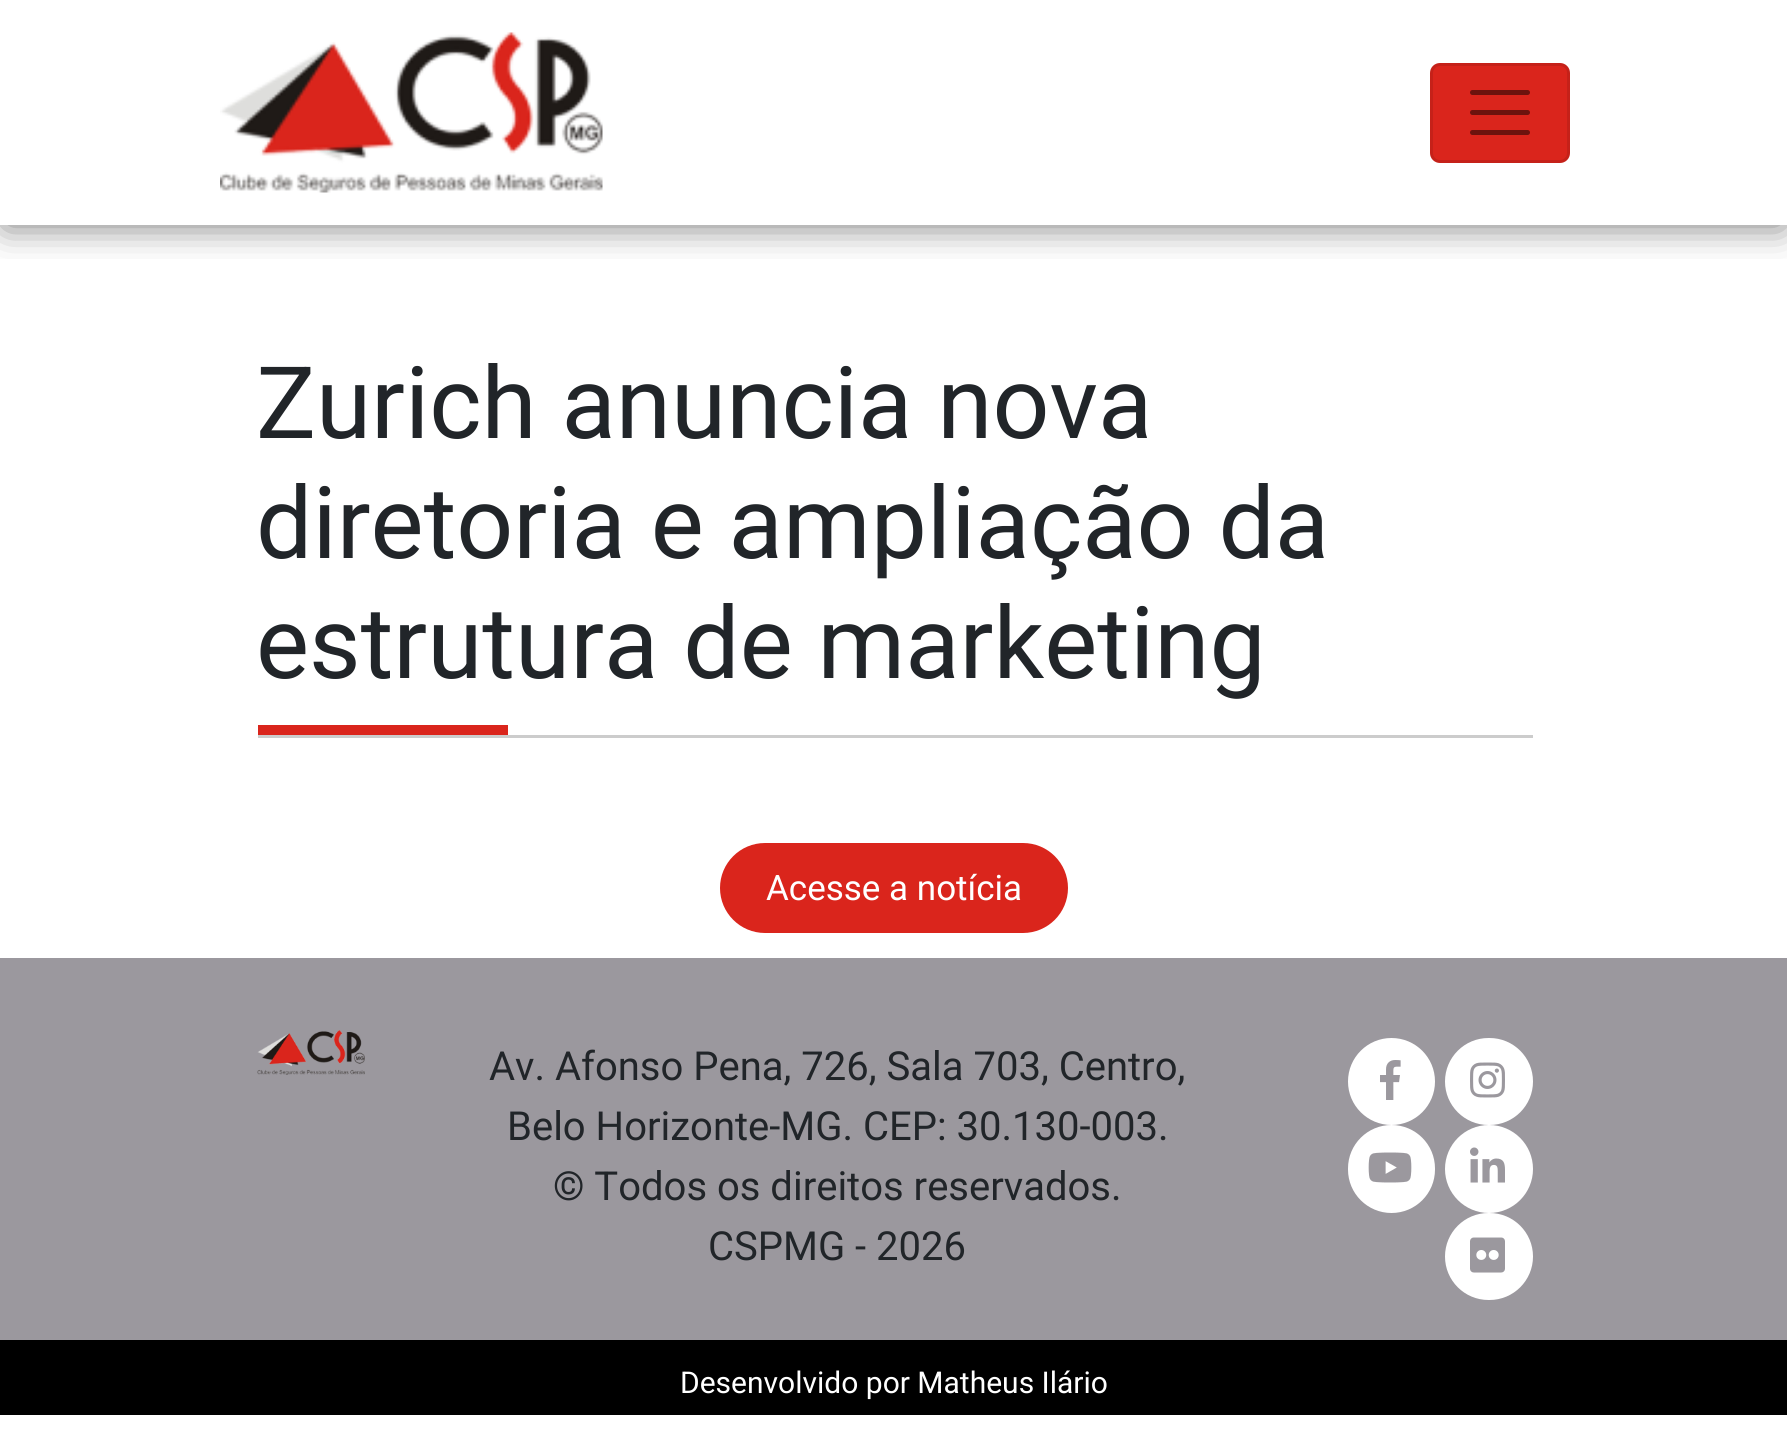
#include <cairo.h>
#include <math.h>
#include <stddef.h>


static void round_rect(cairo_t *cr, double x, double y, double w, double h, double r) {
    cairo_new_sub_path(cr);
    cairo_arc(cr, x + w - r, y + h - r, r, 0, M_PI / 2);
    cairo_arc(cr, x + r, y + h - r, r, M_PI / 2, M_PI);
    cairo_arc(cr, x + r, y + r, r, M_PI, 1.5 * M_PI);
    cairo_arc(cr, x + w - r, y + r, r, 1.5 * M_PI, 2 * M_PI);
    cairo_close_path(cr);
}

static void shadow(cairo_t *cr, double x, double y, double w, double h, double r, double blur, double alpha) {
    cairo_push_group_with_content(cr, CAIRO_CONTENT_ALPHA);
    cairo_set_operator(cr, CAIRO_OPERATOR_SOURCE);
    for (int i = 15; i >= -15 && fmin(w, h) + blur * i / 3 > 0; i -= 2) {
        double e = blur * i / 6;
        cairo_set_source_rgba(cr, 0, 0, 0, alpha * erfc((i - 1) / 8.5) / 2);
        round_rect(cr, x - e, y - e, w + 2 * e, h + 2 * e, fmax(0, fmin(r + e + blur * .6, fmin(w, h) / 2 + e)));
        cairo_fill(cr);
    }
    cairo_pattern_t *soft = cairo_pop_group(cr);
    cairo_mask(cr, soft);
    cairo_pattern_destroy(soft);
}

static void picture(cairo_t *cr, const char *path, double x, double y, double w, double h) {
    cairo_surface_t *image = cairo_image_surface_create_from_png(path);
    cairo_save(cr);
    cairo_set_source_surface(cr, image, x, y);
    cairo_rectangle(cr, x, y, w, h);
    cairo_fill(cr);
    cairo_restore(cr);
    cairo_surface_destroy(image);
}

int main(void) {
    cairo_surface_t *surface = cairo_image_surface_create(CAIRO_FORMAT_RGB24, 1787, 1442);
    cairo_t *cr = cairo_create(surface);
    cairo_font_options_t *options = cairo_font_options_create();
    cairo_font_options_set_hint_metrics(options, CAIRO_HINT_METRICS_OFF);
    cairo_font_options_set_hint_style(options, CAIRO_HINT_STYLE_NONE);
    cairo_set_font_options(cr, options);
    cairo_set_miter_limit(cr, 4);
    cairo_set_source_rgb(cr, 1, 1, 1);
    cairo_paint(cr);
    cairo_save(cr);
    cairo_rectangle(cr, 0, 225, 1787, 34);
    cairo_clip(cr);
    cairo_set_source_rgb(cr, 0, 0, 0);
    shadow(cr, 5, 10, 1778, 215, 0, 19, 0.55);
    cairo_restore(cr);
    picture(cr, "img1.png", 220, 32, 383, 161);
    cairo_set_source_rgb(cr, 0.855, 0.145, 0.11);
    round_rect(cr, 1430, 63, 140, 100, 10);
    cairo_fill(cr);
    round_rect(cr, 1431.5, 64.5, 137, 97, 8.5);
    cairo_set_source_rgba(cr, 0, 0, 0, 0.1);
    cairo_set_line_width(cr, 3);
    cairo_stroke(cr);
    cairo_new_path(cr);
    cairo_move_to(cr, 1472.5, 92.5);
    cairo_line_to(cr, 1527.5, 92.5);
    cairo_move_to(cr, 1472.5, 112.5);
    cairo_line_to(cr, 1527.5, 112.5);
    cairo_move_to(cr, 1472.5, 132.5);
    cairo_line_to(cr, 1527.5, 132.5);
    cairo_set_source_rgb(cr, 0.427, 0.075, 0.055);
    cairo_set_line_width(cr, 5);
    cairo_set_line_cap(cr, CAIRO_LINE_CAP_ROUND);
    cairo_stroke(cr);
    cairo_set_source_rgb(cr, 0.8, 0.8, 0.8);
    cairo_rectangle(cr, 258, 735, 1275, 3);
    cairo_fill(cr);
    cairo_select_font_face(cr, "Roboto", CAIRO_FONT_SLANT_NORMAL, CAIRO_FONT_WEIGHT_NORMAL);
    cairo_set_font_size(cr, 100);
    cairo_set_source_rgb(cr, 0.129, 0.145, 0.161);
    cairo_move_to(cr, 256, 438);
    cairo_show_text(cr, "Zurich anuncia nova");
    cairo_move_to(cr, 256, 558);
    cairo_show_text(cr, "diretoria e ampliação da");
    cairo_move_to(cr, 256, 678);
    cairo_show_text(cr, "estrutura de marketing");
    cairo_set_source_rgb(cr, 0.855, 0.145, 0.11);
    cairo_rectangle(cr, 258, 725, 250, 10);
    cairo_fill(cr);
    round_rect(cr, 720, 843, 348, 90, 45);
    cairo_fill(cr);
    cairo_set_font_size(cr, 35);
    cairo_set_source_rgb(cr, 1, 1, 1);
    cairo_move_to(cr, 766, 900);
    cairo_show_text(cr, "Acesse a notícia");
    cairo_set_source_rgb(cr, 0.608, 0.596, 0.62);
    cairo_rectangle(cr, 0, 958, 1787, 382);
    cairo_fill(cr);
    picture(cr, "img2.png", 257, 1030, 108, 45);
    cairo_set_font_size(cr, 40);
    cairo_set_source_rgb(cr, 0.129, 0.145, 0.161);
    cairo_move_to(cr, 489, 1080);
    cairo_show_text(cr, "Av. Afonso Pena, 726, Sala 703, Centro,");
    cairo_move_to(cr, 507, 1140);
    cairo_show_text(cr, "Belo Horizonte-MG. CEP: 30.130-003.");
    cairo_move_to(cr, 553, 1200);
    cairo_show_text(cr, "© Todos os direitos reservados.");
    cairo_move_to(cr, 708, 1260);
    cairo_show_text(cr, "CSPMG - 2026");
    cairo_set_source_rgb(cr, 1, 1, 1);
    cairo_new_path(cr);
    cairo_arc(cr, 1391.5, 1081.5, 43.5, 0, 2 * M_PI);
    cairo_fill(cr);
    picture(cr, "img3.png", 1380, 1060, 21, 40);
    round_rect(cr, 1445, 1038, 88, 87, 43.5);
    cairo_fill(cr);
    picture(cr, "img4.png", 1470, 1062, 35, 36);
    round_rect(cr, 1348, 1125, 87, 88, 43.5);
    cairo_fill(cr);
    picture(cr, "img5.png", 1368, 1152, 44, 31);
    cairo_arc(cr, 1489, 1169, 44, 0, 2 * M_PI);
    cairo_fill(cr);
    picture(cr, "img6.png", 1470, 1147, 35, 36);
    round_rect(cr, 1445, 1213, 88, 87, 43.5);
    cairo_fill(cr);
    picture(cr, "img7.png", 1470, 1237, 35, 36);
    cairo_set_source_rgb(cr, 0, 0, 0);
    cairo_rectangle(cr, 0, 1340, 1787, 75);
    cairo_fill(cr);
    cairo_set_font_size(cr, 30);
    cairo_set_source_rgb(cr, 1, 1, 1);
    cairo_move_to(cr, 680, 1393);
    cairo_show_text(cr, "Desenvolvido por Matheus Ilário");
    cairo_surface_write_to_png(surface, "page.png");
    cairo_font_options_destroy(options);
    cairo_destroy(cr);
    cairo_surface_destroy(surface);
    return 0;
}
